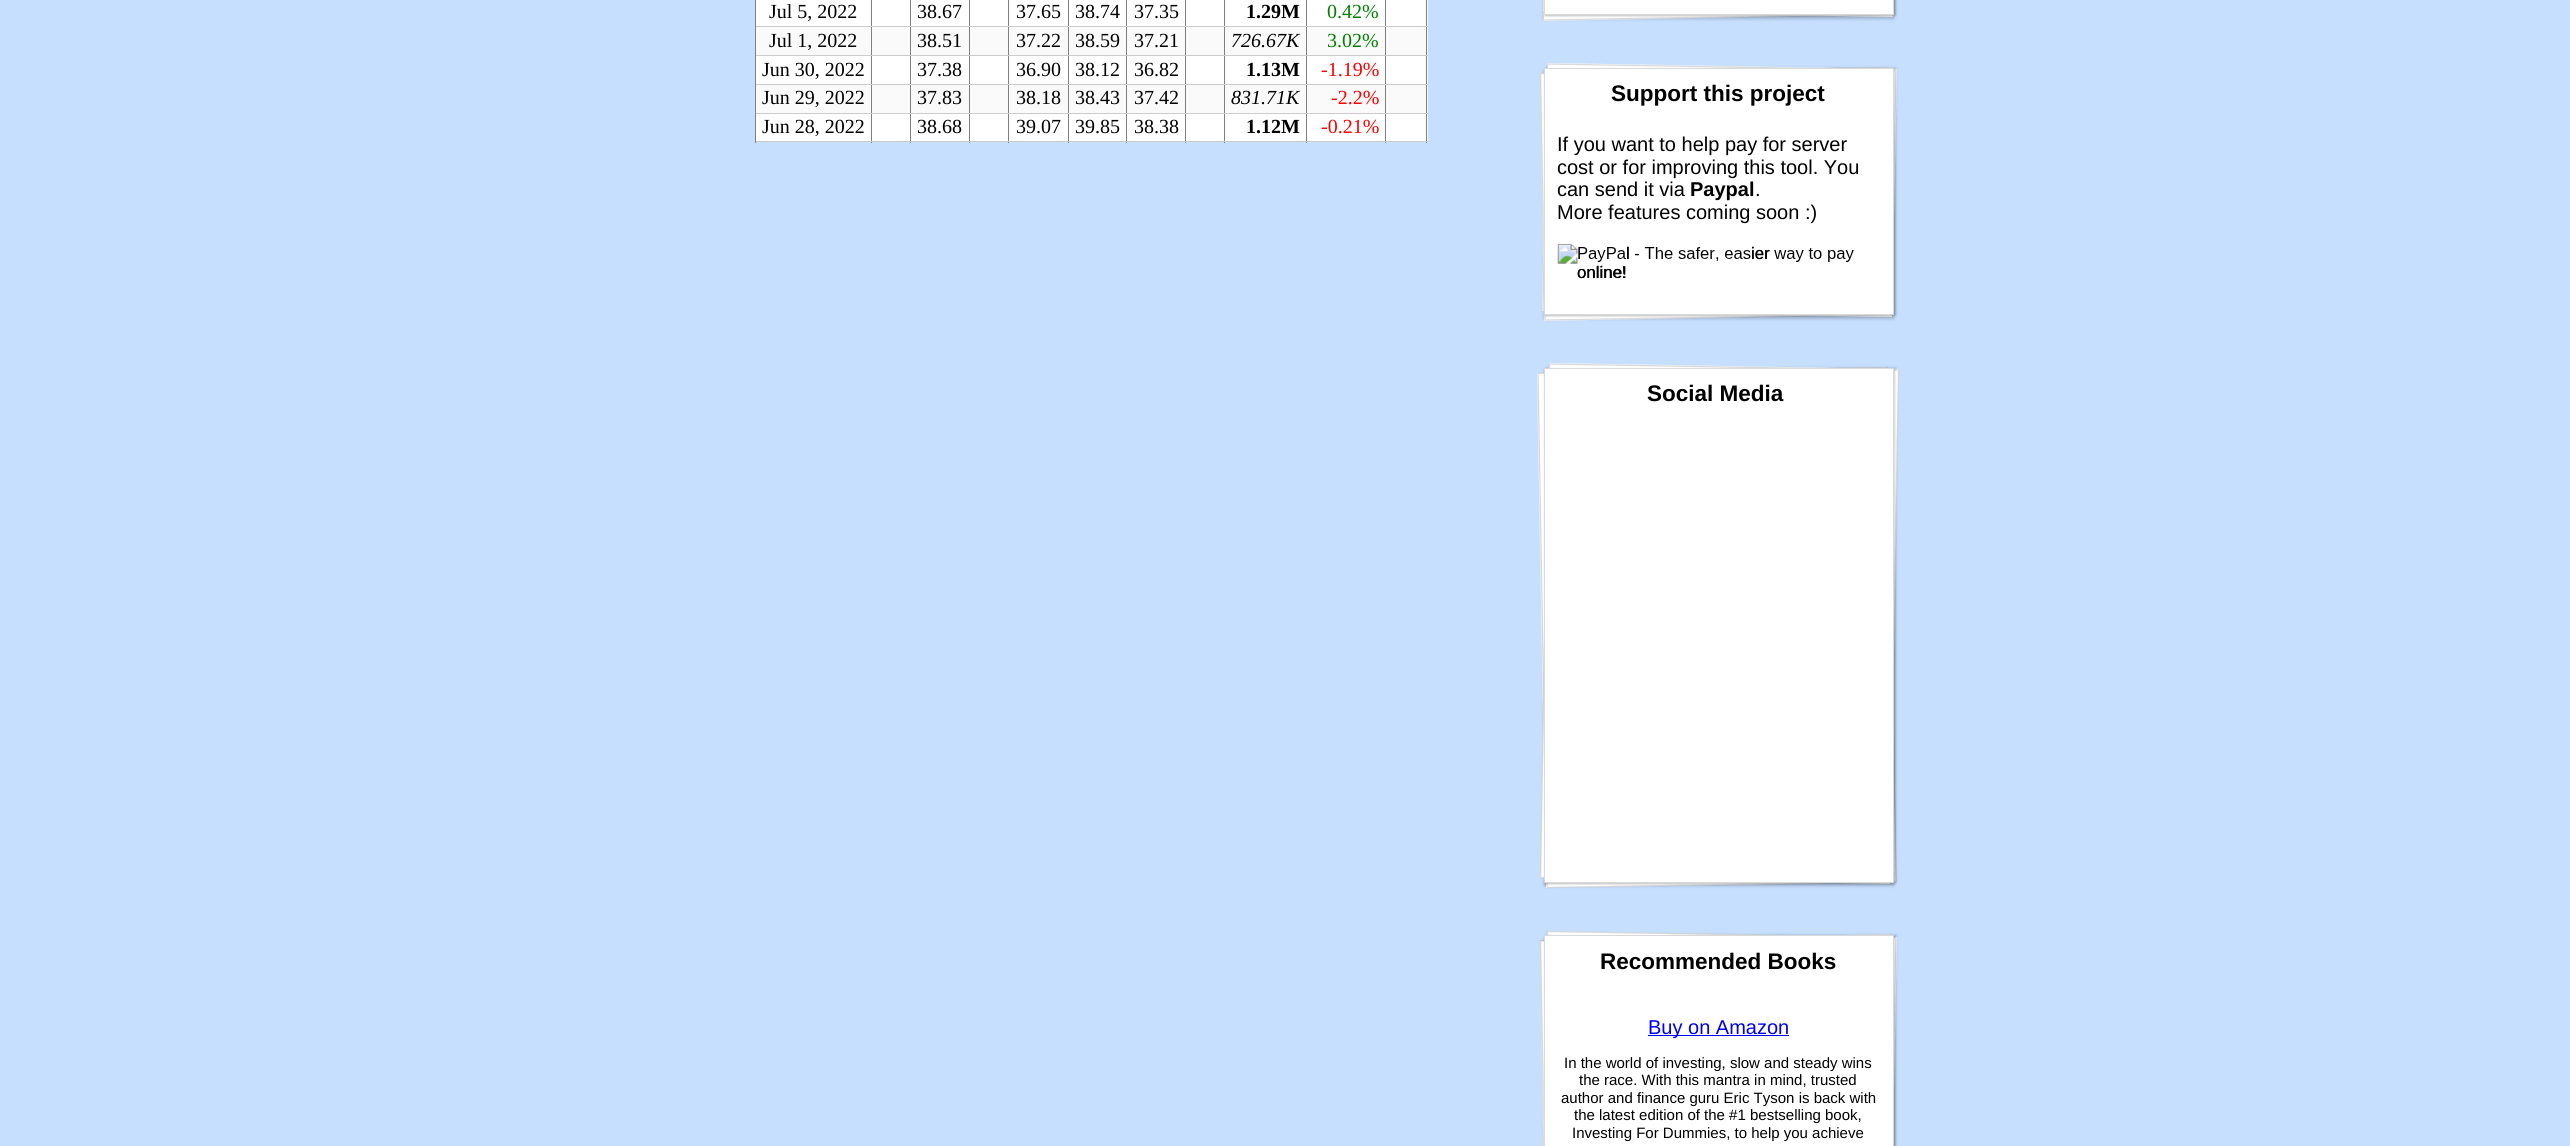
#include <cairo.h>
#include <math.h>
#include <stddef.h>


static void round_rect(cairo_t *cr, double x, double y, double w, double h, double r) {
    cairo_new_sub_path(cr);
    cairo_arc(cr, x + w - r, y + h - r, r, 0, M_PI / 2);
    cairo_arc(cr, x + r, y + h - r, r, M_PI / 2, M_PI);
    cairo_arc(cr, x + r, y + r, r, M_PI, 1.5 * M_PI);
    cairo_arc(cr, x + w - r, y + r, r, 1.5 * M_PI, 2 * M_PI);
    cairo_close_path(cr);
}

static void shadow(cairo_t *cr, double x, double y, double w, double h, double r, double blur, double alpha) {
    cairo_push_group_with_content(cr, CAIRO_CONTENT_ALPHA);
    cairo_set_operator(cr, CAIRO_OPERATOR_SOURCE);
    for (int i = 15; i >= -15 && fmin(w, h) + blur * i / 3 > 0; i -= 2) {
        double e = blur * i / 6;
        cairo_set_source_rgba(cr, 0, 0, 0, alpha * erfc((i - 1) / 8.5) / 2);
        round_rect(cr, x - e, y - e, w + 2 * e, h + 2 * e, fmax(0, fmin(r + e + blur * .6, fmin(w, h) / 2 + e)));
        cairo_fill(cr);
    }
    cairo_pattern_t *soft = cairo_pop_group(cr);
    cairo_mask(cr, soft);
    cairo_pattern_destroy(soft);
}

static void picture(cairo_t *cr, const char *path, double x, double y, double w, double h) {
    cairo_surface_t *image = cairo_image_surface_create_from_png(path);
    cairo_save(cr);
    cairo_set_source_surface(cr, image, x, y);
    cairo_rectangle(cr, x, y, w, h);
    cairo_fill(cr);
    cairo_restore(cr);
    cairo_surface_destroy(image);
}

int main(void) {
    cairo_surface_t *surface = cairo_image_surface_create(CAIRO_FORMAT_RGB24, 2570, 1146);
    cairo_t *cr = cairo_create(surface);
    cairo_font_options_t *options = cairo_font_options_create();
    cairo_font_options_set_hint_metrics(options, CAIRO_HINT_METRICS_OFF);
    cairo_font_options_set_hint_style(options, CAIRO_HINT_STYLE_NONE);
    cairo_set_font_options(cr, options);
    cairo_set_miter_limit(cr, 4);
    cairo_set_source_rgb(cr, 0.776, 0.875, 1);
    cairo_paint(cr);
    cairo_set_source_rgb(cr, 1, 1, 1);
    cairo_rectangle(cr, 756, 0, 672, 26);
    cairo_fill(cr);
    cairo_set_source_rgb(cr, 0.98, 0.98, 0.98);
    cairo_rectangle(cr, 1386, 27, 42, 28);
    cairo_fill(cr);
    cairo_set_source_rgb(cr, 1, 1, 1);
    cairo_rectangle(cr, 756, 56, 672, 28);
    cairo_fill(cr);
    cairo_set_source_rgb(cr, 0.98, 0.98, 0.98);
    cairo_rectangle(cr, 1386, 85, 42, 28);
    cairo_fill(cr);
    cairo_set_source_rgb(cr, 1, 1, 1);
    cairo_rectangle(cr, 756, 114, 672, 27);
    cairo_fill(cr);
    cairo_set_source_rgb(cr, 0.502, 0.502, 0.502);
    cairo_rectangle(cr, 1426, 0, 1, 143);
    cairo_fill(cr);
    cairo_set_source_rgb(cr, 0.8, 0.8, 0.8);
    cairo_rectangle(cr, 1385, 141, 43, 1);
    cairo_fill(cr);
    cairo_set_source_rgb(cr, 0.502, 0.502, 0.502);
    cairo_rectangle(cr, 1385, 113, 1, 30);
    cairo_fill(cr);
    cairo_set_source_rgb(cr, 0.8, 0.8, 0.8);
    cairo_rectangle(cr, 1385, 113, 43, 1);
    cairo_fill(cr);
    cairo_set_source_rgb(cr, 0.502, 0.502, 0.502);
    cairo_rectangle(cr, 1385, 84, 1, 30);
    cairo_fill(cr);
    cairo_set_source_rgb(cr, 0.8, 0.8, 0.8);
    cairo_rectangle(cr, 1385, 84, 43, 1);
    cairo_fill(cr);
    cairo_set_source_rgb(cr, 0.502, 0.502, 0.502);
    cairo_rectangle(cr, 1385, 55, 1, 30);
    cairo_fill(cr);
    cairo_set_source_rgb(cr, 0.8, 0.8, 0.8);
    cairo_rectangle(cr, 1385, 55, 43, 1);
    cairo_fill(cr);
    cairo_set_source_rgb(cr, 0.502, 0.502, 0.502);
    cairo_rectangle(cr, 1385, 26, 1, 30);
    cairo_fill(cr);
    cairo_set_source_rgb(cr, 0.8, 0.8, 0.8);
    cairo_rectangle(cr, 1385, 26, 43, 1);
    cairo_fill(cr);
    cairo_set_source_rgb(cr, 0.502, 0.502, 0.502);
    cairo_rectangle(cr, 1385, 0, 1, 28);
    cairo_fill(cr);
    cairo_set_source_rgb(cr, 0.8, 0.8, 0.8);
    cairo_rectangle(cr, 1306, 141, 80, 1);
    cairo_fill(cr);
    cairo_set_source_rgb(cr, 0.502, 0.502, 0.502);
    cairo_rectangle(cr, 1306, 113, 1, 30);
    cairo_fill(cr);
    cairo_set_source_rgb(cr, 0.8, 0.8, 0.8);
    cairo_rectangle(cr, 1306, 113, 80, 1);
    cairo_fill(cr);
    cairo_set_source_rgb(cr, 0.502, 0.502, 0.502);
    cairo_rectangle(cr, 1306, 84, 1, 30);
    cairo_fill(cr);
    cairo_set_source_rgb(cr, 0.8, 0.8, 0.8);
    cairo_rectangle(cr, 1306, 84, 80, 1);
    cairo_fill(cr);
    cairo_set_source_rgb(cr, 0.502, 0.502, 0.502);
    cairo_rectangle(cr, 1306, 55, 1, 30);
    cairo_fill(cr);
    cairo_set_source_rgb(cr, 0.8, 0.8, 0.8);
    cairo_rectangle(cr, 1306, 55, 80, 1);
    cairo_fill(cr);
    cairo_set_source_rgb(cr, 0.502, 0.502, 0.502);
    cairo_rectangle(cr, 1306, 26, 1, 30);
    cairo_fill(cr);
    cairo_set_source_rgb(cr, 0.8, 0.8, 0.8);
    cairo_rectangle(cr, 1306, 26, 80, 1);
    cairo_fill(cr);
    cairo_set_source_rgb(cr, 0.502, 0.502, 0.502);
    cairo_rectangle(cr, 1306, 0, 1, 28);
    cairo_fill(cr);
    cairo_set_source_rgb(cr, 0.8, 0.8, 0.8);
    cairo_rectangle(cr, 1224, 141, 84, 1);
    cairo_fill(cr);
    cairo_set_source_rgb(cr, 0.502, 0.502, 0.502);
    cairo_rectangle(cr, 1224, 113, 1, 30);
    cairo_fill(cr);
    cairo_set_source_rgb(cr, 0.8, 0.8, 0.8);
    cairo_rectangle(cr, 1224, 113, 84, 1);
    cairo_fill(cr);
    cairo_set_source_rgb(cr, 0.502, 0.502, 0.502);
    cairo_rectangle(cr, 1224, 84, 1, 30);
    cairo_fill(cr);
    cairo_set_source_rgb(cr, 0.8, 0.8, 0.8);
    cairo_rectangle(cr, 1224, 84, 84, 1);
    cairo_fill(cr);
    cairo_set_source_rgb(cr, 0.502, 0.502, 0.502);
    cairo_rectangle(cr, 1224, 55, 1, 30);
    cairo_fill(cr);
    cairo_set_source_rgb(cr, 0.8, 0.8, 0.8);
    cairo_rectangle(cr, 1224, 55, 84, 1);
    cairo_fill(cr);
    cairo_set_source_rgb(cr, 0.502, 0.502, 0.502);
    cairo_rectangle(cr, 1224, 26, 1, 30);
    cairo_fill(cr);
    cairo_set_source_rgb(cr, 0.8, 0.8, 0.8);
    cairo_rectangle(cr, 1224, 26, 84, 1);
    cairo_fill(cr);
    cairo_set_source_rgb(cr, 0.502, 0.502, 0.502);
    cairo_rectangle(cr, 1224, 0, 1, 28);
    cairo_fill(cr);
    cairo_set_source_rgb(cr, 0.8, 0.8, 0.8);
    cairo_rectangle(cr, 1185, 141, 40, 1);
    cairo_fill(cr);
    cairo_set_source_rgb(cr, 0.502, 0.502, 0.502);
    cairo_rectangle(cr, 1185, 113, 1, 30);
    cairo_fill(cr);
    cairo_set_source_rgb(cr, 0.8, 0.8, 0.8);
    cairo_rectangle(cr, 1185, 113, 40, 1);
    cairo_fill(cr);
    cairo_set_source_rgb(cr, 0.502, 0.502, 0.502);
    cairo_rectangle(cr, 1185, 84, 1, 30);
    cairo_fill(cr);
    cairo_set_source_rgb(cr, 0.8, 0.8, 0.8);
    cairo_rectangle(cr, 1185, 84, 40, 1);
    cairo_fill(cr);
    cairo_set_source_rgb(cr, 0.502, 0.502, 0.502);
    cairo_rectangle(cr, 1185, 55, 1, 30);
    cairo_fill(cr);
    cairo_set_source_rgb(cr, 0.8, 0.8, 0.8);
    cairo_rectangle(cr, 1185, 55, 40, 1);
    cairo_fill(cr);
    cairo_set_source_rgb(cr, 0.502, 0.502, 0.502);
    cairo_rectangle(cr, 1185, 26, 1, 30);
    cairo_fill(cr);
    cairo_set_source_rgb(cr, 0.8, 0.8, 0.8);
    cairo_rectangle(cr, 1185, 26, 40, 1);
    cairo_fill(cr);
    cairo_set_source_rgb(cr, 0.502, 0.502, 0.502);
    cairo_rectangle(cr, 1185, 0, 1, 28);
    cairo_fill(cr);
    cairo_set_source_rgb(cr, 0.98, 0.98, 0.98);
    cairo_rectangle(cr, 1069, 27, 116, 28);
    cairo_fill(cr);
    cairo_rectangle(cr, 1069, 85, 116, 28);
    cairo_fill(cr);
    cairo_set_source_rgb(cr, 0.8, 0.8, 0.8);
    cairo_rectangle(cr, 1126, 141, 60, 1);
    cairo_fill(cr);
    cairo_set_source_rgb(cr, 0.502, 0.502, 0.502);
    cairo_rectangle(cr, 1126, 113, 1, 30);
    cairo_fill(cr);
    cairo_set_source_rgb(cr, 0.8, 0.8, 0.8);
    cairo_rectangle(cr, 1126, 113, 60, 1);
    cairo_fill(cr);
    cairo_set_source_rgb(cr, 0.502, 0.502, 0.502);
    cairo_rectangle(cr, 1126, 84, 1, 30);
    cairo_fill(cr);
    cairo_set_source_rgb(cr, 0.8, 0.8, 0.8);
    cairo_rectangle(cr, 1126, 84, 60, 1);
    cairo_fill(cr);
    cairo_set_source_rgb(cr, 0.502, 0.502, 0.502);
    cairo_rectangle(cr, 1126, 55, 1, 30);
    cairo_fill(cr);
    cairo_set_source_rgb(cr, 0.8, 0.8, 0.8);
    cairo_rectangle(cr, 1126, 55, 60, 1);
    cairo_fill(cr);
    cairo_set_source_rgb(cr, 0.502, 0.502, 0.502);
    cairo_rectangle(cr, 1126, 26, 1, 30);
    cairo_fill(cr);
    cairo_set_source_rgb(cr, 0.8, 0.8, 0.8);
    cairo_rectangle(cr, 1126, 26, 60, 1);
    cairo_fill(cr);
    cairo_set_source_rgb(cr, 0.502, 0.502, 0.502);
    cairo_rectangle(cr, 1126, 0, 1, 28);
    cairo_fill(cr);
    cairo_set_source_rgb(cr, 0.8, 0.8, 0.8);
    cairo_rectangle(cr, 1068, 141, 60, 1);
    cairo_fill(cr);
    cairo_set_source_rgb(cr, 0.502, 0.502, 0.502);
    cairo_rectangle(cr, 1068, 113, 1, 30);
    cairo_fill(cr);
    cairo_set_source_rgb(cr, 0.8, 0.8, 0.8);
    cairo_rectangle(cr, 1068, 113, 60, 1);
    cairo_fill(cr);
    cairo_set_source_rgb(cr, 0.502, 0.502, 0.502);
    cairo_rectangle(cr, 1068, 84, 1, 30);
    cairo_fill(cr);
    cairo_set_source_rgb(cr, 0.8, 0.8, 0.8);
    cairo_rectangle(cr, 1068, 84, 60, 1);
    cairo_fill(cr);
    cairo_set_source_rgb(cr, 0.502, 0.502, 0.502);
    cairo_rectangle(cr, 1068, 55, 1, 30);
    cairo_fill(cr);
    cairo_set_source_rgb(cr, 0.8, 0.8, 0.8);
    cairo_rectangle(cr, 1068, 55, 60, 1);
    cairo_fill(cr);
    cairo_set_source_rgb(cr, 0.502, 0.502, 0.502);
    cairo_rectangle(cr, 1068, 26, 1, 30);
    cairo_fill(cr);
    cairo_set_source_rgb(cr, 0.8, 0.8, 0.8);
    cairo_rectangle(cr, 1068, 26, 60, 1);
    cairo_fill(cr);
    cairo_set_source_rgb(cr, 0.502, 0.502, 0.502);
    cairo_rectangle(cr, 1068, 0, 1, 28);
    cairo_fill(cr);
    cairo_set_source_rgb(cr, 0.8, 0.8, 0.8);
    cairo_rectangle(cr, 1008, 141, 61, 1);
    cairo_fill(cr);
    cairo_set_source_rgb(cr, 0.502, 0.502, 0.502);
    cairo_rectangle(cr, 1008, 113, 1, 30);
    cairo_fill(cr);
    cairo_set_source_rgb(cr, 0.8, 0.8, 0.8);
    cairo_rectangle(cr, 1008, 113, 61, 1);
    cairo_fill(cr);
    cairo_set_source_rgb(cr, 0.502, 0.502, 0.502);
    cairo_rectangle(cr, 1008, 84, 1, 30);
    cairo_fill(cr);
    cairo_set_source_rgb(cr, 0.8, 0.8, 0.8);
    cairo_rectangle(cr, 1008, 84, 61, 1);
    cairo_fill(cr);
    cairo_set_source_rgb(cr, 0.502, 0.502, 0.502);
    cairo_rectangle(cr, 1008, 55, 1, 30);
    cairo_fill(cr);
    cairo_set_source_rgb(cr, 0.8, 0.8, 0.8);
    cairo_rectangle(cr, 1008, 55, 61, 1);
    cairo_fill(cr);
    cairo_set_source_rgb(cr, 0.502, 0.502, 0.502);
    cairo_rectangle(cr, 1008, 26, 1, 30);
    cairo_fill(cr);
    cairo_set_source_rgb(cr, 0.8, 0.8, 0.8);
    cairo_rectangle(cr, 1008, 26, 61, 1);
    cairo_fill(cr);
    cairo_set_source_rgb(cr, 0.502, 0.502, 0.502);
    cairo_rectangle(cr, 1008, 0, 1, 28);
    cairo_fill(cr);
    cairo_set_source_rgb(cr, 0.8, 0.8, 0.8);
    cairo_rectangle(cr, 969, 141, 40, 1);
    cairo_fill(cr);
    cairo_set_source_rgb(cr, 0.502, 0.502, 0.502);
    cairo_rectangle(cr, 969, 113, 1, 30);
    cairo_fill(cr);
    cairo_set_source_rgb(cr, 0.8, 0.8, 0.8);
    cairo_rectangle(cr, 969, 113, 40, 1);
    cairo_fill(cr);
    cairo_set_source_rgb(cr, 0.502, 0.502, 0.502);
    cairo_rectangle(cr, 969, 84, 1, 30);
    cairo_fill(cr);
    cairo_set_source_rgb(cr, 0.8, 0.8, 0.8);
    cairo_rectangle(cr, 969, 84, 40, 1);
    cairo_fill(cr);
    cairo_set_source_rgb(cr, 0.502, 0.502, 0.502);
    cairo_rectangle(cr, 969, 55, 1, 30);
    cairo_fill(cr);
    cairo_set_source_rgb(cr, 0.8, 0.8, 0.8);
    cairo_rectangle(cr, 969, 55, 40, 1);
    cairo_fill(cr);
    cairo_set_source_rgb(cr, 0.502, 0.502, 0.502);
    cairo_rectangle(cr, 969, 26, 1, 30);
    cairo_fill(cr);
    cairo_set_source_rgb(cr, 0.8, 0.8, 0.8);
    cairo_rectangle(cr, 969, 26, 40, 1);
    cairo_fill(cr);
    cairo_set_source_rgb(cr, 0.502, 0.502, 0.502);
    cairo_rectangle(cr, 969, 0, 1, 28);
    cairo_fill(cr);
    cairo_set_source_rgb(cr, 0.8, 0.8, 0.8);
    cairo_rectangle(cr, 910, 141, 60, 1);
    cairo_fill(cr);
    cairo_set_source_rgb(cr, 0.502, 0.502, 0.502);
    cairo_rectangle(cr, 910, 113, 1, 30);
    cairo_fill(cr);
    cairo_set_source_rgb(cr, 0.8, 0.8, 0.8);
    cairo_rectangle(cr, 910, 113, 60, 1);
    cairo_fill(cr);
    cairo_set_source_rgb(cr, 0.502, 0.502, 0.502);
    cairo_rectangle(cr, 910, 84, 1, 30);
    cairo_fill(cr);
    cairo_set_source_rgb(cr, 0.8, 0.8, 0.8);
    cairo_rectangle(cr, 910, 84, 60, 1);
    cairo_fill(cr);
    cairo_set_source_rgb(cr, 0.502, 0.502, 0.502);
    cairo_rectangle(cr, 910, 55, 1, 30);
    cairo_fill(cr);
    cairo_set_source_rgb(cr, 0.8, 0.8, 0.8);
    cairo_rectangle(cr, 910, 55, 60, 1);
    cairo_fill(cr);
    cairo_set_source_rgb(cr, 0.502, 0.502, 0.502);
    cairo_rectangle(cr, 910, 26, 1, 30);
    cairo_fill(cr);
    cairo_set_source_rgb(cr, 0.8, 0.8, 0.8);
    cairo_rectangle(cr, 910, 26, 60, 1);
    cairo_fill(cr);
    cairo_set_source_rgb(cr, 0.502, 0.502, 0.502);
    cairo_rectangle(cr, 910, 0, 1, 28);
    cairo_fill(cr);
    cairo_set_source_rgb(cr, 0.8, 0.8, 0.8);
    cairo_rectangle(cr, 871, 141, 40, 1);
    cairo_fill(cr);
    cairo_set_source_rgb(cr, 0.502, 0.502, 0.502);
    cairo_rectangle(cr, 871, 113, 1, 30);
    cairo_fill(cr);
    cairo_set_source_rgb(cr, 0.8, 0.8, 0.8);
    cairo_rectangle(cr, 871, 113, 40, 1);
    cairo_fill(cr);
    cairo_set_source_rgb(cr, 0.502, 0.502, 0.502);
    cairo_rectangle(cr, 871, 84, 1, 30);
    cairo_fill(cr);
    cairo_set_source_rgb(cr, 0.8, 0.8, 0.8);
    cairo_rectangle(cr, 871, 84, 40, 1);
    cairo_fill(cr);
    cairo_set_source_rgb(cr, 0.502, 0.502, 0.502);
    cairo_rectangle(cr, 871, 55, 1, 30);
    cairo_fill(cr);
    cairo_set_source_rgb(cr, 0.8, 0.8, 0.8);
    cairo_rectangle(cr, 871, 55, 40, 1);
    cairo_fill(cr);
    cairo_set_source_rgb(cr, 0.502, 0.502, 0.502);
    cairo_rectangle(cr, 871, 26, 1, 30);
    cairo_fill(cr);
    cairo_set_source_rgb(cr, 0.8, 0.8, 0.8);
    cairo_rectangle(cr, 871, 26, 40, 1);
    cairo_fill(cr);
    cairo_set_source_rgb(cr, 0.502, 0.502, 0.502);
    cairo_rectangle(cr, 871, 0, 1, 28);
    cairo_fill(cr);
    cairo_set_source_rgb(cr, 0.8, 0.8, 0.8);
    cairo_rectangle(cr, 755, 141, 118, 1);
    cairo_fill(cr);
    cairo_set_source_rgb(cr, 0.502, 0.502, 0.502);
    cairo_rectangle(cr, 755, 113, 1, 30);
    cairo_fill(cr);
    cairo_set_source_rgb(cr, 0.8, 0.8, 0.8);
    cairo_rectangle(cr, 755, 113, 118, 1);
    cairo_fill(cr);
    cairo_set_source_rgb(cr, 0.502, 0.502, 0.502);
    cairo_rectangle(cr, 755, 84, 1, 30);
    cairo_fill(cr);
    cairo_set_source_rgb(cr, 0.8, 0.8, 0.8);
    cairo_rectangle(cr, 755, 84, 118, 1);
    cairo_fill(cr);
    cairo_set_source_rgb(cr, 0.502, 0.502, 0.502);
    cairo_rectangle(cr, 755, 55, 1, 30);
    cairo_fill(cr);
    cairo_set_source_rgb(cr, 0.8, 0.8, 0.8);
    cairo_rectangle(cr, 755, 55, 118, 1);
    cairo_fill(cr);
    cairo_set_source_rgb(cr, 0.502, 0.502, 0.502);
    cairo_rectangle(cr, 755, 26, 1, 30);
    cairo_fill(cr);
    cairo_set_source_rgb(cr, 0.8, 0.8, 0.8);
    cairo_rectangle(cr, 755, 26, 118, 1);
    cairo_fill(cr);
    cairo_set_source_rgb(cr, 0.502, 0.502, 0.502);
    cairo_rectangle(cr, 755, 0, 1, 28);
    cairo_fill(cr);
    cairo_select_font_face(cr, "Liberation Serif", CAIRO_FONT_SLANT_NORMAL, CAIRO_FONT_WEIGHT_NORMAL);
    cairo_set_font_size(cr, 20);
    cairo_set_source_rgb(cr, 0, 0, 0);
    cairo_move_to(cr, 769, 18);
    cairo_show_text(cr, "Jul 5, 2022");
    cairo_move_to(cr, 917, 18);
    cairo_show_text(cr, "38.67");
    cairo_move_to(cr, 1016, 18);
    cairo_show_text(cr, "37.65");
    cairo_move_to(cr, 1075, 18);
    cairo_show_text(cr, "38.74");
    cairo_move_to(cr, 1134, 18);
    cairo_show_text(cr, "37.35");
    cairo_select_font_face(cr, "Liberation Serif", CAIRO_FONT_SLANT_NORMAL, CAIRO_FONT_WEIGHT_BOLD);
    cairo_move_to(cr, 1246, 18);
    cairo_show_text(cr, "1.29M");
    cairo_select_font_face(cr, "Liberation Serif", CAIRO_FONT_SLANT_NORMAL, CAIRO_FONT_WEIGHT_NORMAL);
    cairo_set_source_rgb(cr, 0, 0.502, 0);
    cairo_move_to(cr, 1327, 18);
    cairo_show_text(cr, "0.42%");
    cairo_set_source_rgb(cr, 0.98, 0.98, 0.98);
    cairo_rectangle(cr, 756, 27, 115, 28);
    cairo_fill(cr);
    cairo_set_source_rgb(cr, 0, 0, 0);
    cairo_move_to(cr, 769, 47);
    cairo_show_text(cr, "Jul 1, 2022");
    cairo_set_source_rgb(cr, 0.98, 0.98, 0.98);
    cairo_rectangle(cr, 872, 27, 38, 28);
    cairo_fill(cr);
    cairo_rectangle(cr, 911, 27, 58, 28);
    cairo_fill(cr);
    cairo_set_source_rgb(cr, 0, 0, 0);
    cairo_move_to(cr, 917, 47);
    cairo_show_text(cr, "38.51");
    cairo_set_source_rgb(cr, 0.98, 0.98, 0.98);
    cairo_rectangle(cr, 970, 27, 38, 28);
    cairo_fill(cr);
    cairo_rectangle(cr, 1009, 27, 59, 28);
    cairo_fill(cr);
    cairo_set_source_rgb(cr, 0, 0, 0);
    cairo_move_to(cr, 1016, 47);
    cairo_show_text(cr, "37.22");
    cairo_move_to(cr, 1075, 47);
    cairo_show_text(cr, "38.59");
    cairo_move_to(cr, 1134, 47);
    cairo_show_text(cr, "37.21");
    cairo_set_source_rgb(cr, 0.98, 0.98, 0.98);
    cairo_rectangle(cr, 1186, 27, 38, 28);
    cairo_fill(cr);
    cairo_rectangle(cr, 1225, 27, 81, 28);
    cairo_fill(cr);
    cairo_select_font_face(cr, "Liberation Serif", CAIRO_FONT_SLANT_ITALIC, CAIRO_FONT_WEIGHT_NORMAL);
    cairo_set_source_rgb(cr, 0, 0, 0);
    cairo_move_to(cr, 1231, 47);
    cairo_show_text(cr, "726.67K");
    cairo_set_source_rgb(cr, 0.98, 0.98, 0.98);
    cairo_rectangle(cr, 1307, 27, 78, 28);
    cairo_fill(cr);
    cairo_select_font_face(cr, "Liberation Serif", CAIRO_FONT_SLANT_NORMAL, CAIRO_FONT_WEIGHT_NORMAL);
    cairo_set_source_rgb(cr, 0, 0.502, 0);
    cairo_move_to(cr, 1327, 47);
    cairo_show_text(cr, "3.02%");
    cairo_set_source_rgb(cr, 0, 0, 0);
    cairo_move_to(cr, 762, 76);
    cairo_show_text(cr, "Jun 30, 2022");
    cairo_move_to(cr, 917, 76);
    cairo_show_text(cr, "37.38");
    cairo_move_to(cr, 1016, 76);
    cairo_show_text(cr, "36.90");
    cairo_move_to(cr, 1075, 76);
    cairo_show_text(cr, "38.12");
    cairo_move_to(cr, 1134, 76);
    cairo_show_text(cr, "36.82");
    cairo_select_font_face(cr, "Liberation Serif", CAIRO_FONT_SLANT_NORMAL, CAIRO_FONT_WEIGHT_BOLD);
    cairo_move_to(cr, 1246, 76);
    cairo_show_text(cr, "1.13M");
    cairo_select_font_face(cr, "Liberation Serif", CAIRO_FONT_SLANT_NORMAL, CAIRO_FONT_WEIGHT_NORMAL);
    cairo_set_source_rgb(cr, 1, 0, 0);
    cairo_move_to(cr, 1321, 76);
    cairo_show_text(cr, "-1.19%");
    cairo_set_source_rgb(cr, 0.98, 0.98, 0.98);
    cairo_rectangle(cr, 756, 85, 115, 28);
    cairo_fill(cr);
    cairo_set_source_rgb(cr, 0, 0, 0);
    cairo_move_to(cr, 762, 104);
    cairo_show_text(cr, "Jun 29, 2022");
    cairo_set_source_rgb(cr, 0.98, 0.98, 0.98);
    cairo_rectangle(cr, 872, 85, 38, 28);
    cairo_fill(cr);
    cairo_rectangle(cr, 911, 85, 58, 28);
    cairo_fill(cr);
    cairo_set_source_rgb(cr, 0, 0, 0);
    cairo_move_to(cr, 917, 104);
    cairo_show_text(cr, "37.83");
    cairo_set_source_rgb(cr, 0.98, 0.98, 0.98);
    cairo_rectangle(cr, 970, 85, 38, 28);
    cairo_fill(cr);
    cairo_rectangle(cr, 1009, 85, 59, 28);
    cairo_fill(cr);
    cairo_set_source_rgb(cr, 0, 0, 0);
    cairo_move_to(cr, 1016, 104);
    cairo_show_text(cr, "38.18");
    cairo_move_to(cr, 1075, 104);
    cairo_show_text(cr, "38.43");
    cairo_move_to(cr, 1134, 104);
    cairo_show_text(cr, "37.42");
    cairo_set_source_rgb(cr, 0.98, 0.98, 0.98);
    cairo_rectangle(cr, 1186, 85, 38, 28);
    cairo_fill(cr);
    cairo_rectangle(cr, 1225, 85, 81, 28);
    cairo_fill(cr);
    cairo_select_font_face(cr, "Liberation Serif", CAIRO_FONT_SLANT_ITALIC, CAIRO_FONT_WEIGHT_NORMAL);
    cairo_set_source_rgb(cr, 0, 0, 0);
    cairo_move_to(cr, 1231, 104);
    cairo_show_text(cr, "831.71K");
    cairo_set_source_rgb(cr, 0.98, 0.98, 0.98);
    cairo_rectangle(cr, 1307, 85, 78, 28);
    cairo_fill(cr);
    cairo_select_font_face(cr, "Liberation Serif", CAIRO_FONT_SLANT_NORMAL, CAIRO_FONT_WEIGHT_NORMAL);
    cairo_set_source_rgb(cr, 1, 0, 0);
    cairo_move_to(cr, 1331, 104);
    cairo_show_text(cr, "-2.2%");
    cairo_set_source_rgb(cr, 0, 0, 0);
    cairo_move_to(cr, 762, 133);
    cairo_show_text(cr, "Jun 28, 2022");
    cairo_move_to(cr, 917, 133);
    cairo_show_text(cr, "38.68");
    cairo_move_to(cr, 1016, 133);
    cairo_show_text(cr, "39.07");
    cairo_move_to(cr, 1075, 133);
    cairo_show_text(cr, "39.85");
    cairo_move_to(cr, 1134, 133);
    cairo_show_text(cr, "38.38");
    cairo_select_font_face(cr, "Liberation Serif", CAIRO_FONT_SLANT_NORMAL, CAIRO_FONT_WEIGHT_BOLD);
    cairo_move_to(cr, 1246, 133);
    cairo_show_text(cr, "1.12M");
    cairo_select_font_face(cr, "Liberation Serif", CAIRO_FONT_SLANT_NORMAL, CAIRO_FONT_WEIGHT_NORMAL);
    cairo_set_source_rgb(cr, 1, 0, 0);
    cairo_move_to(cr, 1321, 133);
    cairo_show_text(cr, "-0.21%");
    cairo_set_source_rgb(cr, 0, 0, 0);
    shadow(cr, 1544, -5, 350, 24, 0, 1.5, 0.2);
    cairo_set_source_rgb(cr, 1, 1, 1);
    cairo_new_path(cr);
    cairo_move_to(cr, 1541, -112);
    cairo_line_to(cr, 1891, -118);
    cairo_line_to(cr, 1893, 14);
    cairo_line_to(cr, 1543, 21);
    cairo_close_path(cr);
    cairo_fill(cr);
    cairo_new_path(cr);
    cairo_move_to(cr, 1541.5, -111.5);
    cairo_line_to(cr, 1890, -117.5);
    cairo_line_to(cr, 1892.5, 14);
    cairo_line_to(cr, 1543.5, 20);
    cairo_close_path(cr);
    cairo_set_source_rgba(cr, 0, 0, 0, 0.15);
    cairo_set_line_width(cr, 1.3);
    cairo_stroke(cr);
    cairo_set_source_rgb(cr, 0, 0, 0);
    shadow(cr, 1546, -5, 350, 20, 0, 1.5, 0.19);
    cairo_set_source_rgb(cr, 1, 1, 1);
    cairo_new_path(cr);
    cairo_move_to(cr, 1546, -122);
    cairo_line_to(cr, 1896, -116);
    cairo_line_to(cr, 1893, 17);
    cairo_line_to(cr, 1543, 11);
    cairo_close_path(cr);
    cairo_fill(cr);
    cairo_new_path(cr);
    cairo_move_to(cr, 1546, -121);
    cairo_line_to(cr, 1895, -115);
    cairo_line_to(cr, 1892.5, 16);
    cairo_line_to(cr, 1544, 10);
    cairo_close_path(cr);
    cairo_set_source_rgba(cr, 0, 0, 0, 0.15);
    cairo_stroke(cr);
    cairo_set_source_rgb(cr, 0, 0, 0);
    shadow(cr, 1545, -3, 350, 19, 0, 1, 0.18);
    cairo_set_source_rgb(cr, 1, 1, 1);
    cairo_rectangle(cr, 1544.5, -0.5, 349, 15);
    cairo_fill_preserve(cr);
    cairo_set_source_rgb(cr, 0.851, 0.851, 0.851);
    cairo_set_line_width(cr, 1);
    cairo_stroke(cr);
    cairo_set_source_rgb(cr, 0, 0, 0);
    shadow(cr, 1544, 71, 350, 248, 0, 1.5, 0.2);
    cairo_set_source_rgb(cr, 1, 1, 1);
    cairo_new_path(cr);
    cairo_move_to(cr, 1540, 73);
    cairo_line_to(cr, 1890, 67);
    cairo_line_to(cr, 1894, 314);
    cairo_line_to(cr, 1544, 321);
    cairo_close_path(cr);
    cairo_fill(cr);
    cairo_new_path(cr);
    cairo_move_to(cr, 1540.5, 73.5);
    cairo_line_to(cr, 1889, 67.5);
    cairo_line_to(cr, 1893.5, 314);
    cairo_line_to(cr, 1545, 320);
    cairo_close_path(cr);
    cairo_set_source_rgba(cr, 0, 0, 0, 0.15);
    cairo_set_line_width(cr, 1.3);
    cairo_stroke(cr);
    cairo_set_source_rgb(cr, 0, 0, 0);
    shadow(cr, 1546, 68, 350, 247, 0, 1.5, 0.19);
    cairo_set_source_rgb(cr, 1, 1, 1);
    cairo_new_path(cr);
    cairo_move_to(cr, 1547, 63);
    cairo_line_to(cr, 1897, 69);
    cairo_line_to(cr, 1892, 317);
    cairo_line_to(cr, 1542, 311);
    cairo_close_path(cr);
    cairo_fill(cr);
    cairo_new_path(cr);
    cairo_move_to(cr, 1547.5, 64);
    cairo_line_to(cr, 1896, 70);
    cairo_line_to(cr, 1891.5, 316);
    cairo_line_to(cr, 1543, 310);
    cairo_close_path(cr);
    cairo_set_source_rgba(cr, 0, 0, 0, 0.15);
    cairo_stroke(cr);
    cairo_set_source_rgb(cr, 0, 0, 0);
    shadow(cr, 1545, 69, 350, 247, 0, 1, 0.18);
    cairo_set_source_rgb(cr, 1, 1, 1);
    cairo_rectangle(cr, 1544.5, 68.5, 349, 246);
    cairo_fill_preserve(cr);
    cairo_set_source_rgb(cr, 0.851, 0.851, 0.851);
    cairo_set_line_width(cr, 1);
    cairo_stroke(cr);
    cairo_select_font_face(cr, "Liberation Sans", CAIRO_FONT_SLANT_NORMAL, CAIRO_FONT_WEIGHT_BOLD);
    cairo_set_font_size(cr, 22.5);
    cairo_set_source_rgb(cr, 0, 0, 0);
    cairo_move_to(cr, 1611, 101);
    cairo_show_text(cr, "Support this project");
    cairo_select_font_face(cr, "Liberation Sans", CAIRO_FONT_SLANT_NORMAL, CAIRO_FONT_WEIGHT_NORMAL);
    cairo_set_font_size(cr, 20);
    cairo_move_to(cr, 1557, 151);
    cairo_show_text(cr, "If you want to help pay for server");
    cairo_move_to(cr, 1557, 174);
    cairo_show_text(cr, "cost or for improving this tool. You");
    cairo_move_to(cr, 1557, 196);
    cairo_show_text(cr, "can send it via");
    cairo_select_font_face(cr, "Liberation Sans", CAIRO_FONT_SLANT_NORMAL, CAIRO_FONT_WEIGHT_BOLD);
    cairo_move_to(cr, 1690, 196);
    cairo_show_text(cr, "Paypal");
    cairo_select_font_face(cr, "Liberation Sans", CAIRO_FONT_SLANT_NORMAL, CAIRO_FONT_WEIGHT_NORMAL);
    cairo_move_to(cr, 1755, 196);
    cairo_show_text(cr, ".");
    cairo_move_to(cr, 1557, 219);
    cairo_show_text(cr, "More features coming soon :)");
    picture(cr, "img1.png", 1557, 243, 297, 35);
    cairo_set_font_size(cr, 17);
    cairo_move_to(cr, 1626, 259);
    cairo_show_text(cr, "l");
    cairo_move_to(cr, 1751, 259);
    cairo_show_text(cr, "ier");
    cairo_move_to(cr, 1577, 278);
    cairo_show_text(cr, "online!");
    cairo_set_source_rgb(cr, 0, 0, 0);
    shadow(cr, 1544, 371, 350, 515, 0, 1.5, 0.2);
    cairo_set_source_rgb(cr, 1, 1, 1);
    cairo_new_path(cr);
    cairo_move_to(cr, 1537, 373);
    cairo_line_to(cr, 1887, 367);
    cairo_line_to(cr, 1896, 882);
    cairo_line_to(cr, 1546, 888);
    cairo_close_path(cr);
    cairo_fill(cr);
    cairo_new_path(cr);
    cairo_move_to(cr, 1538, 373.5);
    cairo_line_to(cr, 1887, 367.5);
    cairo_line_to(cr, 1896, 881.5);
    cairo_line_to(cr, 1547, 887.5);
    cairo_close_path(cr);
    cairo_set_source_rgba(cr, 0, 0, 0, 0.15);
    cairo_set_line_width(cr, 1.3);
    cairo_stroke(cr);
    cairo_set_source_rgb(cr, 0, 0, 0);
    shadow(cr, 1546, 368, 350, 515, 0, 1.5, 0.19);
    cairo_set_source_rgb(cr, 1, 1, 1);
    cairo_new_path(cr);
    cairo_move_to(cr, 1549, 363);
    cairo_line_to(cr, 1899, 369);
    cairo_line_to(cr, 1890, 884);
    cairo_line_to(cr, 1540, 878);
    cairo_close_path(cr);
    cairo_fill(cr);
    cairo_new_path(cr);
    cairo_move_to(cr, 1549.5, 364);
    cairo_line_to(cr, 1898.5, 370);
    cairo_line_to(cr, 1889.5, 883.5);
    cairo_line_to(cr, 1540.5, 877.5);
    cairo_close_path(cr);
    cairo_set_source_rgba(cr, 0, 0, 0, 0.15);
    cairo_stroke(cr);
    cairo_set_source_rgb(cr, 0, 0, 0);
    shadow(cr, 1545, 369, 350, 515, 0, 1, 0.18);
    cairo_set_source_rgb(cr, 1, 1, 1);
    cairo_rectangle(cr, 1544.5, 368.5, 349, 514);
    cairo_fill_preserve(cr);
    cairo_set_source_rgb(cr, 0.851, 0.851, 0.851);
    cairo_set_line_width(cr, 1);
    cairo_stroke(cr);
    cairo_select_font_face(cr, "Liberation Sans", CAIRO_FONT_SLANT_NORMAL, CAIRO_FONT_WEIGHT_BOLD);
    cairo_set_font_size(cr, 22.5);
    cairo_set_source_rgb(cr, 0, 0, 0);
    cairo_move_to(cr, 1647, 401);
    cairo_show_text(cr, "Social Media");
    cairo_set_source_rgb(cr, 0, 0, 0);
    shadow(cr, 1544, 939, 350, 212, 0, 1.5, 0.2);
    cairo_set_source_rgb(cr, 1, 1, 1);
    cairo_new_path(cr);
    cairo_move_to(cr, 1540, 941);
    cairo_line_to(cr, 1890, 934);
    cairo_line_to(cr, 1894, 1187);
    cairo_line_to(cr, 1544, 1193);
    cairo_close_path(cr);
    cairo_fill(cr);
    cairo_new_path(cr);
    cairo_move_to(cr, 1540.5, 941);
    cairo_line_to(cr, 1889, 935);
    cairo_line_to(cr, 1893.5, 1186.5);
    cairo_line_to(cr, 1545, 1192.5);
    cairo_close_path(cr);
    cairo_set_source_rgba(cr, 0, 0, 0, 0.15);
    cairo_set_line_width(cr, 1.3);
    cairo_stroke(cr);
    cairo_set_source_rgb(cr, 0, 0, 0);
    shadow(cr, 1546, 935, 350, 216, 0, 1.5, 0.19);
    cairo_set_source_rgb(cr, 1, 1, 1);
    cairo_new_path(cr);
    cairo_move_to(cr, 1547, 931);
    cairo_line_to(cr, 1897, 937);
    cairo_line_to(cr, 1892, 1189);
    cairo_line_to(cr, 1542, 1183);
    cairo_close_path(cr);
    cairo_fill(cr);
    cairo_new_path(cr);
    cairo_move_to(cr, 1547.5, 931.5);
    cairo_line_to(cr, 1896, 937.5);
    cairo_line_to(cr, 1891.5, 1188.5);
    cairo_line_to(cr, 1543, 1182.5);
    cairo_close_path(cr);
    cairo_set_source_rgba(cr, 0, 0, 0, 0.15);
    cairo_stroke(cr);
    cairo_set_source_rgb(cr, 0, 0, 0);
    shadow(cr, 1545, 936, 350, 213, 0, 1, 0.18);
    cairo_set_source_rgb(cr, 1, 1, 1);
    cairo_rectangle(cr, 1544.5, 935.5, 349, 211);
    cairo_fill_preserve(cr);
    cairo_set_source_rgb(cr, 0.851, 0.851, 0.851);
    cairo_set_line_width(cr, 1);
    cairo_stroke(cr);
    cairo_set_source_rgb(cr, 0, 0, 0);
    cairo_move_to(cr, 1600, 969);
    cairo_show_text(cr, "Recommended Books");
    cairo_set_source_rgb(cr, 0, 0, 0.933);
    cairo_rectangle(cr, 1648, 1035, 141, 1);
    cairo_fill(cr);
    cairo_select_font_face(cr, "Liberation Sans", CAIRO_FONT_SLANT_NORMAL, CAIRO_FONT_WEIGHT_NORMAL);
    cairo_set_font_size(cr, 20);
    cairo_move_to(cr, 1648, 1034);
    cairo_show_text(cr, "Buy on Amazon");
    cairo_set_font_size(cr, 15);
    cairo_set_source_rgb(cr, 0, 0, 0);
    cairo_move_to(cr, 1564, 1068);
    cairo_show_text(cr, "In the world of investing, slow and steady wins");
    cairo_move_to(cr, 1579, 1085);
    cairo_show_text(cr, "the race. With this mantra in mind, trusted");
    cairo_move_to(cr, 1561, 1103);
    cairo_show_text(cr, "author and finance guru Eric Tyson is back with");
    cairo_move_to(cr, 1574, 1120);
    cairo_show_text(cr, "the latest edition of the #1 bestselling book,");
    cairo_move_to(cr, 1572, 1138);
    cairo_show_text(cr, "Investing For Dummies, to help you achieve");
    cairo_surface_write_to_png(surface, "page.png");
    cairo_font_options_destroy(options);
    cairo_destroy(cr);
    cairo_surface_destroy(surface);
    return 0;
}
